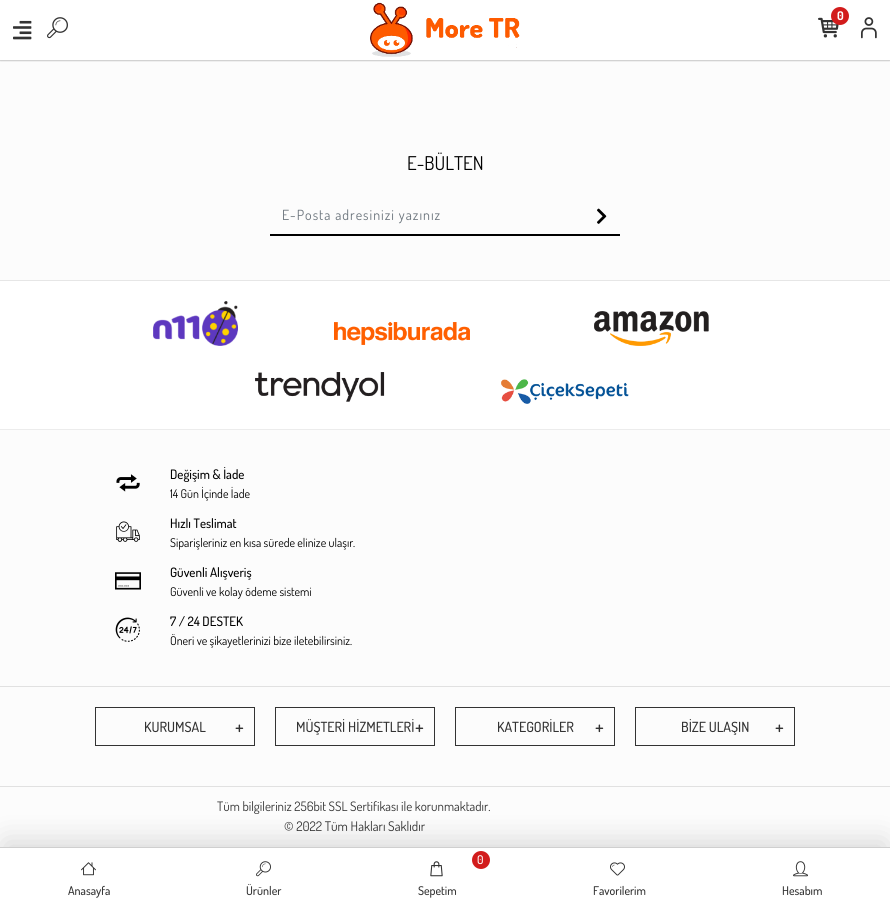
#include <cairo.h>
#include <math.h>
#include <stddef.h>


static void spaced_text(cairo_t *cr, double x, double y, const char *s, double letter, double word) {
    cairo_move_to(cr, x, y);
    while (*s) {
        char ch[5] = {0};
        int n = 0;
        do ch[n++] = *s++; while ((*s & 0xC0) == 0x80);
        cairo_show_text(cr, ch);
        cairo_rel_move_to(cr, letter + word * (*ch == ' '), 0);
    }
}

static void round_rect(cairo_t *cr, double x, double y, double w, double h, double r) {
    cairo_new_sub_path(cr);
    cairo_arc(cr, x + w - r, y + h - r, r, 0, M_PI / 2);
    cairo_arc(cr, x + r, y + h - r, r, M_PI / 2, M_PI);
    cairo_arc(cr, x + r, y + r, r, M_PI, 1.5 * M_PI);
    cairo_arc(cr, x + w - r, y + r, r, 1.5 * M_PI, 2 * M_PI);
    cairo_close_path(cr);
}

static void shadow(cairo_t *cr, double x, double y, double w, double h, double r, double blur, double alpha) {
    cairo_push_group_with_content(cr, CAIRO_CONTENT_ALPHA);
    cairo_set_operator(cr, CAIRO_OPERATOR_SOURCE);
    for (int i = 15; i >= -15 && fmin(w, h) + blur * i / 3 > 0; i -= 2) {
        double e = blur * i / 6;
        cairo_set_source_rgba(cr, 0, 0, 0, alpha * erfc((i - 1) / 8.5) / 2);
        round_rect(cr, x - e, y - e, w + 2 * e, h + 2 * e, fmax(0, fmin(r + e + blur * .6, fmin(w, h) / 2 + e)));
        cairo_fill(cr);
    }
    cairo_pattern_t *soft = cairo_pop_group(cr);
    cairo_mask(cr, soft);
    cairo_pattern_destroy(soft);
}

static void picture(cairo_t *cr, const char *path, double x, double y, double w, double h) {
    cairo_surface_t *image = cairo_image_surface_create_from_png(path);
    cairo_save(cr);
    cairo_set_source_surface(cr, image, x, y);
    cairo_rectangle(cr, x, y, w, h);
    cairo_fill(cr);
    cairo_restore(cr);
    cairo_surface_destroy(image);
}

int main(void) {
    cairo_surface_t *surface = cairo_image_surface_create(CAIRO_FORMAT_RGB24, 890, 912);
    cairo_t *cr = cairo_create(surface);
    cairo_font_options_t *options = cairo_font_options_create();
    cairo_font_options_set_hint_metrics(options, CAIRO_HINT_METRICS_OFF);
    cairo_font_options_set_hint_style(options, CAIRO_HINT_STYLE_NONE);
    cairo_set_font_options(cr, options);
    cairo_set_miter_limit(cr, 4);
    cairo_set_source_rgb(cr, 0.988, 0.988, 0.988);
    cairo_paint(cr);
    cairo_set_source_rgb(cr, 0, 0, 0);
    shadow(cr, 0, 1, 890, 60, 0, 0.5, 0.2);
    cairo_set_source_rgb(cr, 1, 1, 1);
    cairo_rectangle(cr, 0, 0, 890, 60);
    cairo_fill(cr);
    picture(cr, "img1.png", 370, 2, 150, 55);
    picture(cr, "img2.png", 818, 17, 21, 21);
    cairo_set_source_rgb(cr, 0.824, 0.11, 0.11);
    cairo_arc(cr, 840, 16, 9, 0, 2 * M_PI);
    cairo_fill(cr);
    cairo_select_font_face(cr, "Dosis", CAIRO_FONT_SLANT_NORMAL, CAIRO_FONT_WEIGHT_BOLD);
    cairo_set_font_size(cr, 12);
    cairo_set_source_rgb(cr, 1, 1, 1);
    cairo_move_to(cr, 837, 20);
    cairo_show_text(cr, "0");
    picture(cr, "img3.png", 861, 17, 16, 22);
    picture(cr, "img4.png", 13, 20, 19, 20);
    picture(cr, "img5.png", 47, 17, 21, 22);
    cairo_select_font_face(cr, "Dosis", CAIRO_FONT_SLANT_NORMAL, CAIRO_FONT_WEIGHT_NORMAL);
    cairo_set_font_size(cr, 19);
    cairo_set_source_rgb(cr, 0, 0, 0);
    cairo_move_to(cr, 407, 170);
    cairo_show_text(cr, "E-BÜLTEN");
    cairo_rectangle(cr, 270, 234, 350, 2);
    cairo_fill(cr);
    cairo_set_font_size(cr, 14);
    cairo_set_source_rgb(cr, 0.424, 0.459, 0.49);
    spaced_text(cr, 282, 220, "E-Posta adresinizi yazınız", 1, 0);
    picture(cr, "img6.png", 597, 208, 10, 16);
    cairo_set_source_rgb(cr, 1, 1, 1);
    cairo_rectangle(cr, 0, 281, 890, 148);
    cairo_fill(cr);
    cairo_set_source_rgb(cr, 0.902, 0.902, 0.902);
    cairo_rectangle(cr, 0, 280, 890, 1);
    cairo_fill(cr);
    picture(cr, "img7.png", 153, 301, 85, 45);
    picture(cr, "img8.png", 334, 322, 136, 23);
    picture(cr, "img9.png", 594, 311, 115, 35);
    picture(cr, "img10.png", 255, 372, 130, 30);
    picture(cr, "img11.png", 501, 379, 128, 25);
    cairo_set_source_rgb(cr, 0.922, 0.922, 0.922);
    cairo_rectangle(cr, 0, 429, 890, 1);
    cairo_fill(cr);
    picture(cr, "img12.png", 116, 474, 24, 18);
    cairo_select_font_face(cr, "Dosis Medium", CAIRO_FONT_SLANT_NORMAL, CAIRO_FONT_WEIGHT_NORMAL);
    cairo_set_font_size(cr, 13);
    cairo_set_source_rgb(cr, 0, 0, 0);
    cairo_move_to(cr, 170, 479);
    cairo_show_text(cr, "Değişim & İade");
    cairo_select_font_face(cr, "Dosis", CAIRO_FONT_SLANT_NORMAL, CAIRO_FONT_WEIGHT_NORMAL);
    cairo_set_font_size(cr, 12);
    cairo_move_to(cr, 170, 498);
    cairo_show_text(cr, "14 Gün İçinde İade");
    picture(cr, "img13.png", 116, 521, 24, 21);
    cairo_select_font_face(cr, "Dosis Medium", CAIRO_FONT_SLANT_NORMAL, CAIRO_FONT_WEIGHT_NORMAL);
    cairo_set_font_size(cr, 13);
    cairo_move_to(cr, 170, 528);
    cairo_show_text(cr, "Hızlı Teslimat");
    cairo_select_font_face(cr, "Dosis", CAIRO_FONT_SLANT_NORMAL, CAIRO_FONT_WEIGHT_NORMAL);
    cairo_set_font_size(cr, 12);
    cairo_move_to(cr, 170, 547);
    cairo_show_text(cr, "Siparişleriniz en kısa sürede elinize ulaşır.");
    picture(cr, "img14.png", 115, 572, 26, 18);
    cairo_select_font_face(cr, "Dosis Medium", CAIRO_FONT_SLANT_NORMAL, CAIRO_FONT_WEIGHT_NORMAL);
    cairo_set_font_size(cr, 13);
    cairo_move_to(cr, 170, 577);
    cairo_show_text(cr, "Güvenli Alışveriş");
    cairo_select_font_face(cr, "Dosis", CAIRO_FONT_SLANT_NORMAL, CAIRO_FONT_WEIGHT_NORMAL);
    cairo_set_font_size(cr, 12);
    cairo_move_to(cr, 170, 596);
    cairo_show_text(cr, "Güvenli ve kolay ödeme sistemi");
    picture(cr, "img15.png", 115, 617, 25, 25);
    cairo_select_font_face(cr, "Dosis Medium", CAIRO_FONT_SLANT_NORMAL, CAIRO_FONT_WEIGHT_NORMAL);
    cairo_set_font_size(cr, 13);
    cairo_move_to(cr, 170, 626);
    cairo_show_text(cr, "7 / 24 DESTEK");
    cairo_select_font_face(cr, "Dosis", CAIRO_FONT_SLANT_NORMAL, CAIRO_FONT_WEIGHT_NORMAL);
    cairo_set_font_size(cr, 12);
    cairo_move_to(cr, 170, 645);
    cairo_show_text(cr, "Öneri ve şikayetlerinizi bize iletebilirsiniz.");
    cairo_set_source_rgb(cr, 0.882, 0.882, 0.882);
    cairo_rectangle(cr, 0, 686, 890, 1);
    cairo_fill(cr);
    cairo_rectangle(cr, 95.5, 707.5, 159, 38);
    cairo_set_source_rgb(cr, 0.2, 0.2, 0.2);
    cairo_set_line_width(cr, 1);
    cairo_stroke(cr);
    cairo_select_font_face(cr, "Dosis Medium", CAIRO_FONT_SLANT_NORMAL, CAIRO_FONT_WEIGHT_NORMAL);
    cairo_set_font_size(cr, 14);
    cairo_move_to(cr, 144, 732);
    cairo_show_text(cr, "KURUMSAL");
    cairo_set_font_size(cr, 20);
    cairo_move_to(cr, 235, 734);
    cairo_show_text(cr, "+");
    cairo_rectangle(cr, 275.5, 707.5, 159, 38);
    cairo_stroke(cr);
    cairo_set_font_size(cr, 14);
    cairo_move_to(cr, 296, 732);
    cairo_show_text(cr, "MÜŞTERİ HİZMETLERİ");
    cairo_set_font_size(cr, 20);
    cairo_move_to(cr, 415, 734);
    cairo_show_text(cr, "+");
    cairo_rectangle(cr, 455.5, 707.5, 159, 38);
    cairo_stroke(cr);
    cairo_set_font_size(cr, 14);
    cairo_move_to(cr, 497, 732);
    cairo_show_text(cr, "KATEGORİLER");
    cairo_set_font_size(cr, 20);
    cairo_move_to(cr, 595, 734);
    cairo_show_text(cr, "+");
    cairo_rectangle(cr, 635.5, 707.5, 159, 38);
    cairo_stroke(cr);
    cairo_set_font_size(cr, 14);
    cairo_move_to(cr, 681, 732);
    cairo_show_text(cr, "BİZE ULAŞIN");
    cairo_set_font_size(cr, 20);
    cairo_move_to(cr, 775, 734);
    cairo_show_text(cr, "+");
    cairo_set_source_rgb(cr, 0.882, 0.882, 0.882);
    cairo_rectangle(cr, 0, 786, 890, 1);
    cairo_fill(cr);
    cairo_select_font_face(cr, "Dosis", CAIRO_FONT_SLANT_NORMAL, CAIRO_FONT_WEIGHT_NORMAL);
    cairo_set_font_size(cr, 13);
    cairo_set_source_rgb(cr, 0.2, 0.2, 0.2);
    cairo_move_to(cr, 217, 811);
    cairo_show_text(cr, "Tüm bilgileriniz 256bit SSL Sertifikası ile korunmaktadır.");
    cairo_set_font_size(cr, 13.25);
    cairo_move_to(cr, 284, 831);
    cairo_show_text(cr, "© 2022 Tüm Hakları Saklıdır");
    cairo_set_source_rgb(cr, 0, 0, 0);
    shadow(cr, 5, 842, 880, 55, 0, 15, 0.15);
    cairo_set_source_rgb(cr, 1, 1, 1);
    cairo_rectangle(cr, 0, 848, 890, 64);
    cairo_fill(cr);
    cairo_set_source_rgb(cr, 0.812, 0.812, 0.812);
    cairo_rectangle(cr, 0, 847, 890, 1);
    cairo_fill(cr);
    picture(cr, "img16.png", 81, 862, 15, 14);
    cairo_select_font_face(cr, "Dosis Medium", CAIRO_FONT_SLANT_NORMAL, CAIRO_FONT_WEIGHT_NORMAL);
    cairo_set_font_size(cr, 12);
    cairo_set_source_rgb(cr, 0.2, 0.2, 0.2);
    cairo_move_to(cr, 68, 895);
    cairo_show_text(cr, "Anasayfa");
    picture(cr, "img17.png", 256, 861, 15, 16);
    cairo_move_to(cr, 246, 895);
    cairo_show_text(cr, "Ürünler");
    cairo_set_source_rgb(cr, 0.824, 0.11, 0.11);
    cairo_new_path(cr);
    cairo_arc(cr, 481, 860, 9, 0, 2 * M_PI);
    cairo_fill(cr);
    cairo_set_source_rgb(cr, 1, 1, 1);
    cairo_move_to(cr, 477, 864);
    cairo_show_text(cr, "0");
    picture(cr, "img18.png", 430, 861, 13, 16);
    cairo_set_source_rgb(cr, 0.2, 0.2, 0.2);
    cairo_move_to(cr, 418, 895);
    cairo_show_text(cr, "Sepetim");
    picture(cr, "img19.png", 610, 862, 15, 14);
    cairo_move_to(cr, 593, 895);
    cairo_show_text(cr, "Favorilerim");
    picture(cr, "img20.png", 793, 861, 15, 16);
    cairo_move_to(cr, 782, 895);
    cairo_show_text(cr, "Hesabım");
    cairo_surface_write_to_png(surface, "page.png");
    cairo_font_options_destroy(options);
    cairo_destroy(cr);
    cairo_surface_destroy(surface);
    return 0;
}
